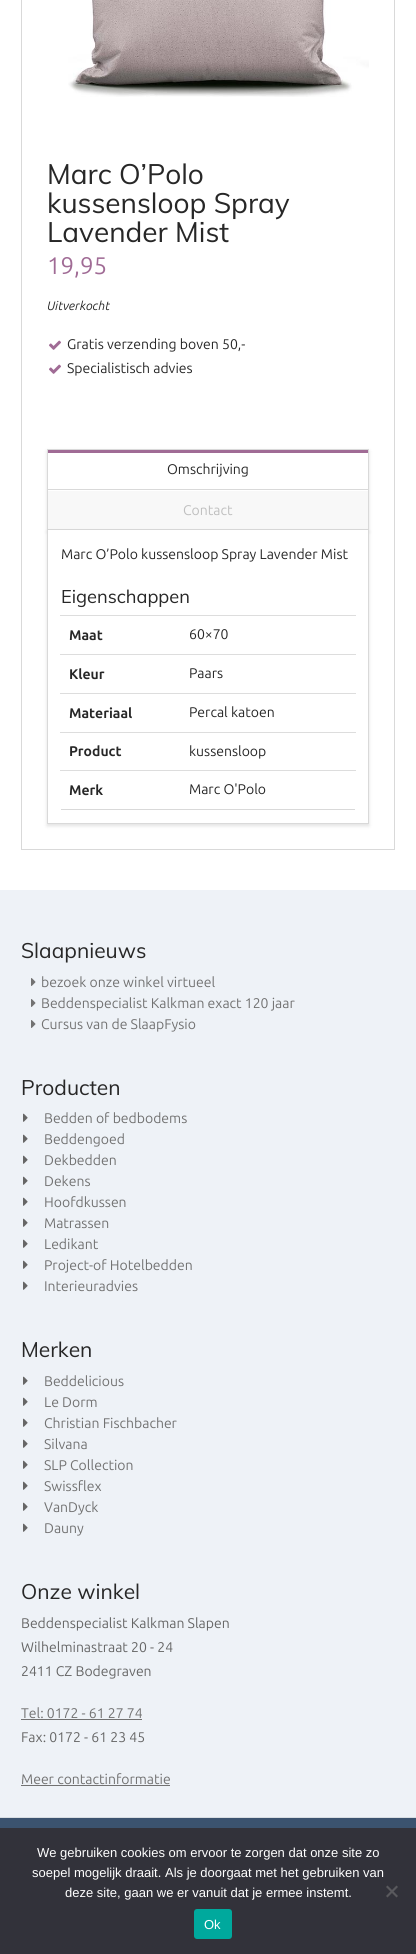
#include <cairo.h>
#include <math.h>
#include <stddef.h>


static void round_rect(cairo_t *cr, double x, double y, double w, double h, double r) {
    cairo_new_sub_path(cr);
    cairo_arc(cr, x + w - r, y + h - r, r, 0, M_PI / 2);
    cairo_arc(cr, x + r, y + h - r, r, M_PI / 2, M_PI);
    cairo_arc(cr, x + r, y + r, r, M_PI, 1.5 * M_PI);
    cairo_arc(cr, x + w - r, y + r, r, 1.5 * M_PI, 2 * M_PI);
    cairo_close_path(cr);
}

static void shadow(cairo_t *cr, double x, double y, double w, double h, double r, double blur, double alpha) {
    cairo_push_group_with_content(cr, CAIRO_CONTENT_ALPHA);
    cairo_set_operator(cr, CAIRO_OPERATOR_SOURCE);
    for (int i = 15; i >= -15 && fmin(w, h) + blur * i / 3 > 0; i -= 2) {
        double e = blur * i / 6;
        cairo_set_source_rgba(cr, 0, 0, 0, alpha * erfc((i - 1) / 8.5) / 2);
        round_rect(cr, x - e, y - e, w + 2 * e, h + 2 * e, fmax(0, fmin(r + e + blur * .6, fmin(w, h) / 2 + e)));
        cairo_fill(cr);
    }
    cairo_pattern_t *soft = cairo_pop_group(cr);
    cairo_mask(cr, soft);
    cairo_pattern_destroy(soft);
}

static void picture(cairo_t *cr, const char *path, double x, double y, double w, double h) {
    cairo_surface_t *image = cairo_image_surface_create_from_png(path);
    cairo_save(cr);
    cairo_set_source_surface(cr, image, x, y);
    cairo_rectangle(cr, x, y, w, h);
    cairo_fill(cr);
    cairo_restore(cr);
    cairo_surface_destroy(image);
}

int main(void) {
    cairo_surface_t *surface = cairo_image_surface_create(CAIRO_FORMAT_RGB24, 416, 1954);
    cairo_t *cr = cairo_create(surface);
    cairo_font_options_t *options = cairo_font_options_create();
    cairo_font_options_set_hint_metrics(options, CAIRO_HINT_METRICS_OFF);
    cairo_font_options_set_hint_style(options, CAIRO_HINT_STYLE_NONE);
    cairo_set_font_options(cr, options);
    cairo_set_miter_limit(cr, 4);
    cairo_set_source_rgb(cr, 1, 1, 1);
    cairo_paint(cr);
    cairo_rectangle(cr, 21.5, -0.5, 373, 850);
    cairo_set_source_rgb(cr, 0.851, 0.851, 0.851);
    cairo_set_line_width(cr, 1);
    cairo_stroke(cr);
    picture(cr, "img1.png", 68, 0, 301, 97);
    cairo_select_font_face(cr, "Muli", CAIRO_FONT_SLANT_NORMAL, CAIRO_FONT_WEIGHT_NORMAL);
    cairo_set_font_size(cr, 28);
    cairo_set_source_rgb(cr, 0.153, 0.153, 0.153);
    cairo_move_to(cr, 47, 184);
    cairo_show_text(cr, "Marc O’Polo");
    cairo_move_to(cr, 47, 213);
    cairo_show_text(cr, "kussensloop Spray");
    cairo_move_to(cr, 47, 242);
    cairo_show_text(cr, "Lavender Mist");
    cairo_select_font_face(cr, "Ubuntu", CAIRO_FONT_SLANT_NORMAL, CAIRO_FONT_WEIGHT_NORMAL);
    cairo_set_font_size(cr, 24);
    cairo_set_source_rgb(cr, 0.627, 0.42, 0.584);
    cairo_move_to(cr, 47, 274);
    cairo_show_text(cr, "19,95");
    cairo_select_font_face(cr, "Ubuntu", CAIRO_FONT_SLANT_ITALIC, CAIRO_FONT_WEIGHT_NORMAL);
    cairo_set_font_size(cr, 12.25);
    cairo_set_source_rgb(cr, 0.153, 0.153, 0.153);
    cairo_move_to(cr, 47, 310);
    cairo_show_text(cr, "Uitverkocht");
    picture(cr, "img2.png", 49, 340, 12, 10);
    cairo_select_font_face(cr, "Ubuntu", CAIRO_FONT_SLANT_NORMAL, CAIRO_FONT_WEIGHT_NORMAL);
    cairo_set_font_size(cr, 14);
    cairo_move_to(cr, 67, 349);
    cairo_show_text(cr, "Gratis verzending boven 50,-");
    picture(cr, "img2.png", 49, 364, 12, 10);
    cairo_move_to(cr, 67, 373);
    cairo_show_text(cr, "Specialistisch advies");
    cairo_save(cr);
    cairo_set_fill_rule(cr, CAIRO_FILL_RULE_EVEN_ODD);
    cairo_new_path(cr);
    cairo_move_to(cr, 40, 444);
    cairo_line_to(cr, 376, 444);
    cairo_line_to(cr, 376, 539);
    cairo_line_to(cr, 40, 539);
    cairo_close_path(cr);
    cairo_move_to(cr, 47, 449);
    cairo_line_to(cr, 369, 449);
    cairo_line_to(cr, 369, 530);
    cairo_line_to(cr, 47, 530);
    cairo_close_path(cr);
    cairo_clip(cr);
    cairo_set_source_rgb(cr, 0, 0, 0);
    shadow(cr, 47, 451, 322, 81, 0, 2, 0.12);
    cairo_restore(cr);
    cairo_set_source_rgb(cr, 0.851, 0.851, 0.851);
    cairo_new_path(cr);
    cairo_move_to(cr, 47, 449);
    cairo_line_to(cr, 369, 449);
    cairo_line_to(cr, 368, 450);
    cairo_line_to(cr, 48, 450);
    cairo_close_path(cr);
    cairo_fill(cr);
    cairo_set_source_rgba(cr, 0, 0, 0, 0.15);
    cairo_new_path(cr);
    cairo_move_to(cr, 369, 449);
    cairo_line_to(cr, 369, 530);
    cairo_line_to(cr, 368, 530);
    cairo_line_to(cr, 368, 450);
    cairo_close_path(cr);
    cairo_fill(cr);
    cairo_new_path(cr);
    cairo_move_to(cr, 47, 530);
    cairo_line_to(cr, 47, 449);
    cairo_line_to(cr, 48, 450);
    cairo_line_to(cr, 48, 530);
    cairo_close_path(cr);
    cairo_fill(cr);
    cairo_set_source_rgb(cr, 0.851, 0.851, 0.851);
    cairo_rectangle(cr, 48, 489, 320, 1);
    cairo_fill(cr);
    cairo_set_source_rgb(cr, 0.627, 0.42, 0.584);
    cairo_rectangle(cr, 48, 450, 320, 3);
    cairo_fill(cr);
    cairo_set_source_rgb(cr, 0.153, 0.153, 0.153);
    cairo_move_to(cr, 167, 474);
    cairo_show_text(cr, "Omschrijving");
    cairo_set_source_rgb(cr, 0.851, 0.851, 0.851);
    cairo_rectangle(cr, 48, 529, 320, 1);
    cairo_fill(cr);
    cairo_set_source_rgb(cr, 0.969, 0.969, 0.969);
    cairo_rectangle(cr, 48, 491, 320, 38);
    cairo_fill(cr);
    cairo_set_source_rgb(cr, 0.749, 0.749, 0.749);
    cairo_move_to(cr, 183, 515);
    cairo_show_text(cr, "Contact");
    cairo_set_source_rgb(cr, 0, 0, 0);
    shadow(cr, 47, 532, 322, 294, 0, 2, 0.12);
    cairo_set_source_rgb(cr, 1, 1, 1);
    cairo_rectangle(cr, 47, 530, 322, 294);
    cairo_fill(cr);
    cairo_set_source_rgb(cr, 0.851, 0.851, 0.851);
    cairo_new_path(cr);
    cairo_move_to(cr, 369, 530);
    cairo_line_to(cr, 369, 824);
    cairo_line_to(cr, 368, 823);
    cairo_line_to(cr, 368, 530);
    cairo_close_path(cr);
    cairo_fill(cr);
    cairo_set_source_rgba(cr, 0, 0, 0, 0.15);
    cairo_new_path(cr);
    cairo_move_to(cr, 369, 824);
    cairo_line_to(cr, 47, 824);
    cairo_line_to(cr, 48, 823);
    cairo_line_to(cr, 368, 823);
    cairo_close_path(cr);
    cairo_fill(cr);
    cairo_new_path(cr);
    cairo_move_to(cr, 47, 824);
    cairo_line_to(cr, 47, 530);
    cairo_line_to(cr, 48, 530);
    cairo_line_to(cr, 48, 823);
    cairo_close_path(cr);
    cairo_fill(cr);
    cairo_set_source_rgb(cr, 0.153, 0.153, 0.153);
    cairo_move_to(cr, 61, 559);
    cairo_show_text(cr, "Marc O’Polo kussensloop Spray Lavender Mist");
    cairo_select_font_face(cr, "Muli", CAIRO_FONT_SLANT_NORMAL, CAIRO_FONT_WEIGHT_NORMAL);
    cairo_set_font_size(cr, 18.25);
    cairo_move_to(cr, 61, 603);
    cairo_show_text(cr, "Eigenschappen");
    cairo_set_source_rgb(cr, 0.851, 0.851, 0.851);
    cairo_rectangle(cr, 61, 809, 294, 1);
    cairo_fill(cr);
    cairo_select_font_face(cr, "Ubuntu", CAIRO_FONT_SLANT_NORMAL, CAIRO_FONT_WEIGHT_BOLD);
    cairo_set_font_size(cr, 14);
    cairo_set_source_rgb(cr, 0.153, 0.153, 0.153);
    cairo_move_to(cr, 69, 640);
    cairo_show_text(cr, "Maat");
    cairo_set_source_rgb(cr, 0.867, 0.867, 0.867);
    cairo_rectangle(cr, 60, 615, 296, 1);
    cairo_fill(cr);
    cairo_select_font_face(cr, "Ubuntu", CAIRO_FONT_SLANT_NORMAL, CAIRO_FONT_WEIGHT_NORMAL);
    cairo_set_source_rgb(cr, 0.153, 0.153, 0.153);
    cairo_move_to(cr, 189, 639);
    cairo_show_text(cr, "60×70");
    cairo_select_font_face(cr, "Ubuntu", CAIRO_FONT_SLANT_NORMAL, CAIRO_FONT_WEIGHT_BOLD);
    cairo_move_to(cr, 69, 679);
    cairo_show_text(cr, "Kleur");
    cairo_set_source_rgb(cr, 0.867, 0.867, 0.867);
    cairo_rectangle(cr, 60, 654, 296, 1);
    cairo_fill(cr);
    cairo_select_font_face(cr, "Ubuntu", CAIRO_FONT_SLANT_NORMAL, CAIRO_FONT_WEIGHT_NORMAL);
    cairo_set_source_rgb(cr, 0.153, 0.153, 0.153);
    cairo_move_to(cr, 189, 678);
    cairo_show_text(cr, "Paars");
    cairo_select_font_face(cr, "Ubuntu", CAIRO_FONT_SLANT_NORMAL, CAIRO_FONT_WEIGHT_BOLD);
    cairo_move_to(cr, 69, 718);
    cairo_show_text(cr, "Materiaal");
    cairo_set_source_rgb(cr, 0.867, 0.867, 0.867);
    cairo_rectangle(cr, 60, 693, 296, 1);
    cairo_fill(cr);
    cairo_select_font_face(cr, "Ubuntu", CAIRO_FONT_SLANT_NORMAL, CAIRO_FONT_WEIGHT_NORMAL);
    cairo_set_source_rgb(cr, 0.153, 0.153, 0.153);
    cairo_move_to(cr, 189, 717);
    cairo_show_text(cr, "Percal katoen");
    cairo_select_font_face(cr, "Ubuntu", CAIRO_FONT_SLANT_NORMAL, CAIRO_FONT_WEIGHT_BOLD);
    cairo_move_to(cr, 69, 756);
    cairo_show_text(cr, "Product");
    cairo_set_source_rgb(cr, 0.867, 0.867, 0.867);
    cairo_rectangle(cr, 60, 732, 296, 1);
    cairo_fill(cr);
    cairo_select_font_face(cr, "Ubuntu", CAIRO_FONT_SLANT_NORMAL, CAIRO_FONT_WEIGHT_NORMAL);
    cairo_set_source_rgb(cr, 0.153, 0.153, 0.153);
    cairo_move_to(cr, 189, 756);
    cairo_show_text(cr, "kussensloop");
    cairo_select_font_face(cr, "Ubuntu", CAIRO_FONT_SLANT_NORMAL, CAIRO_FONT_WEIGHT_BOLD);
    cairo_move_to(cr, 69, 795);
    cairo_show_text(cr, "Merk");
    cairo_set_source_rgb(cr, 0.867, 0.867, 0.867);
    cairo_rectangle(cr, 60, 770, 296, 1);
    cairo_fill(cr);
    cairo_select_font_face(cr, "Ubuntu", CAIRO_FONT_SLANT_NORMAL, CAIRO_FONT_WEIGHT_NORMAL);
    cairo_set_source_rgb(cr, 0.153, 0.153, 0.153);
    cairo_move_to(cr, 189, 794);
    cairo_show_text(cr, "Marc O'Polo");
    cairo_set_source_rgb(cr, 0.933, 0.949, 0.965);
    cairo_rectangle(cr, 0, 890, 416, 927);
    cairo_fill(cr);
    cairo_select_font_face(cr, "Muli", CAIRO_FONT_SLANT_NORMAL, CAIRO_FONT_WEIGHT_NORMAL);
    cairo_set_font_size(cr, 21);
    cairo_set_source_rgb(cr, 0.153, 0.153, 0.153);
    cairo_move_to(cr, 21, 958);
    cairo_show_text(cr, "Slaapnieuws");
    picture(cr, "img3.png", 31, 978, 5, 8);
    cairo_select_font_face(cr, "Ubuntu", CAIRO_FONT_SLANT_NORMAL, CAIRO_FONT_WEIGHT_NORMAL);
    cairo_set_font_size(cr, 14);
    cairo_set_source_rgb(cr, 0.447, 0.447, 0.447);
    cairo_move_to(cr, 41, 987);
    cairo_show_text(cr, "bezoek onze winkel virtueel");
    picture(cr, "img3.png", 31, 999, 5, 8);
    cairo_move_to(cr, 41, 1008);
    cairo_show_text(cr, "Beddenspecialist Kalkman exact 120 jaar");
    picture(cr, "img3.png", 31, 1020, 5, 8);
    cairo_move_to(cr, 41, 1029);
    cairo_show_text(cr, "Cursus van de SlaapFysio");
    cairo_select_font_face(cr, "Muli", CAIRO_FONT_SLANT_NORMAL, CAIRO_FONT_WEIGHT_NORMAL);
    cairo_set_font_size(cr, 21);
    cairo_set_source_rgb(cr, 0.153, 0.153, 0.153);
    cairo_move_to(cr, 21, 1095);
    cairo_show_text(cr, "Producten");
    picture(cr, "img4.png", 23, 1113, 5, 9);
    cairo_select_font_face(cr, "Ubuntu", CAIRO_FONT_SLANT_NORMAL, CAIRO_FONT_WEIGHT_NORMAL);
    cairo_set_font_size(cr, 14);
    cairo_set_source_rgb(cr, 0.447, 0.447, 0.447);
    cairo_move_to(cr, 44, 1123);
    cairo_show_text(cr, "Bedden of bedbodems");
    picture(cr, "img4.png", 23, 1134, 5, 9);
    cairo_move_to(cr, 44, 1144);
    cairo_show_text(cr, "Beddengoed");
    picture(cr, "img4.png", 23, 1155, 5, 9);
    cairo_move_to(cr, 44, 1165);
    cairo_show_text(cr, "Dekbedden");
    picture(cr, "img4.png", 23, 1176, 5, 9);
    cairo_move_to(cr, 44, 1186);
    cairo_show_text(cr, "Dekens");
    picture(cr, "img4.png", 23, 1197, 5, 9);
    cairo_move_to(cr, 44, 1207);
    cairo_show_text(cr, "Hoofdkussen");
    picture(cr, "img4.png", 23, 1218, 5, 9);
    cairo_move_to(cr, 44, 1228);
    cairo_show_text(cr, "Matrassen");
    picture(cr, "img4.png", 23, 1239, 5, 9);
    cairo_move_to(cr, 44, 1249);
    cairo_show_text(cr, "Ledikant");
    picture(cr, "img4.png", 23, 1260, 5, 9);
    cairo_move_to(cr, 44, 1270);
    cairo_show_text(cr, "Project-of Hotelbedden");
    picture(cr, "img4.png", 23, 1281, 5, 9);
    cairo_move_to(cr, 44, 1291);
    cairo_show_text(cr, "Interieuradvies");
    cairo_select_font_face(cr, "Muli", CAIRO_FONT_SLANT_NORMAL, CAIRO_FONT_WEIGHT_NORMAL);
    cairo_set_font_size(cr, 21);
    cairo_set_source_rgb(cr, 0.153, 0.153, 0.153);
    cairo_move_to(cr, 21, 1357);
    cairo_show_text(cr, "Merken");
    picture(cr, "img4.png", 23, 1376, 5, 9);
    cairo_select_font_face(cr, "Ubuntu", CAIRO_FONT_SLANT_NORMAL, CAIRO_FONT_WEIGHT_NORMAL);
    cairo_set_font_size(cr, 14);
    cairo_set_source_rgb(cr, 0.447, 0.447, 0.447);
    cairo_move_to(cr, 44, 1386);
    cairo_show_text(cr, "Beddelicious");
    picture(cr, "img4.png", 23, 1397, 5, 9);
    cairo_move_to(cr, 44, 1407);
    cairo_show_text(cr, "Le Dorm");
    picture(cr, "img4.png", 23, 1418, 5, 9);
    cairo_move_to(cr, 44, 1428);
    cairo_show_text(cr, "Christian Fischbacher");
    picture(cr, "img4.png", 23, 1439, 5, 9);
    cairo_move_to(cr, 44, 1449);
    cairo_show_text(cr, "Silvana");
    picture(cr, "img4.png", 23, 1460, 5, 9);
    cairo_move_to(cr, 44, 1470);
    cairo_show_text(cr, "SLP Collection");
    picture(cr, "img4.png", 23, 1481, 5, 9);
    cairo_move_to(cr, 44, 1491);
    cairo_show_text(cr, "Swissflex");
    picture(cr, "img4.png", 23, 1502, 5, 9);
    cairo_move_to(cr, 44, 1512);
    cairo_show_text(cr, "VanDyck");
    picture(cr, "img4.png", 23, 1523, 5, 9);
    cairo_move_to(cr, 44, 1533);
    cairo_show_text(cr, "Dauny");
    cairo_select_font_face(cr, "Muli", CAIRO_FONT_SLANT_NORMAL, CAIRO_FONT_WEIGHT_NORMAL);
    cairo_set_font_size(cr, 21);
    cairo_set_source_rgb(cr, 0.153, 0.153, 0.153);
    cairo_move_to(cr, 21, 1599);
    cairo_show_text(cr, "Onze winkel");
    cairo_select_font_face(cr, "Ubuntu", CAIRO_FONT_SLANT_NORMAL, CAIRO_FONT_WEIGHT_NORMAL);
    cairo_set_font_size(cr, 14);
    cairo_set_source_rgb(cr, 0.4, 0.4, 0.4);
    cairo_move_to(cr, 21, 1628);
    cairo_show_text(cr, "Beddenspecialist Kalkman Slapen");
    cairo_move_to(cr, 21, 1652);
    cairo_show_text(cr, "Wilhelminastraat 20 - 24");
    cairo_move_to(cr, 21, 1676);
    cairo_show_text(cr, "2411 CZ Bodegraven");
    cairo_set_source_rgb(cr, 0.447, 0.447, 0.447);
    cairo_move_to(cr, 21, 1718);
    cairo_show_text(cr, "Tel: 0172 - 61 27 74");
    cairo_rectangle(cr, 21, 1719, 121, 1);
    cairo_fill(cr);
    cairo_set_source_rgb(cr, 0.4, 0.4, 0.4);
    cairo_move_to(cr, 21, 1742);
    cairo_show_text(cr, "Fax: 0172 - 61 23 45");
    cairo_set_source_rgb(cr, 0.447, 0.447, 0.447);
    cairo_move_to(cr, 21, 1784);
    cairo_show_text(cr, "Meer contactinformatie");
    cairo_rectangle(cr, 21, 1785, 149, 1);
    cairo_fill(cr);
    cairo_set_source_rgb(cr, 0.231, 0.325, 0.435);
    cairo_rectangle(cr, 0, 1818, 416, 10);
    cairo_fill(cr);
    cairo_set_source_rgb(cr, 0.847, 0.867, 0.886);
    cairo_rectangle(cr, 0, 1817, 416, 1);
    cairo_fill(cr);
    cairo_set_source_rgb(cr, 0.196, 0.196, 0.227);
    cairo_rectangle(cr, 0, 1828, 416, 126);
    cairo_fill(cr);
    cairo_select_font_face(cr, "Liberation Sans", CAIRO_FONT_SLANT_NORMAL, CAIRO_FONT_WEIGHT_NORMAL);
    cairo_set_font_size(cr, 13);
    cairo_set_source_rgb(cr, 1, 1, 1);
    cairo_move_to(cr, 37, 1857);
    cairo_show_text(cr, "We gebruiken cookies om ervoor te zorgen dat onze site zo");
    cairo_move_to(cr, 32, 1877);
    cairo_show_text(cr, "soepel mogelijk draait. Als je doorgaat met het gebruiken van");
    cairo_move_to(cr, 65, 1897);
    cairo_show_text(cr, "deze site, gaan we er vanuit dat je ermee instemt.");
    cairo_set_source_rgb(cr, 0.349, 0.349, 0.365);
    cairo_new_path(cr);
    cairo_move_to(cr, 396.5, 1885.5);
    cairo_line_to(cr, 398, 1887);
    cairo_line_to(cr, 387.5, 1897.5);
    cairo_line_to(cr, 386, 1896);
    cairo_close_path(cr);
    cairo_fill(cr);
    cairo_new_path(cr);
    cairo_move_to(cr, 386, 1887);
    cairo_line_to(cr, 387.5, 1885.5);
    cairo_line_to(cr, 398, 1896);
    cairo_line_to(cr, 396.5, 1897.5);
    cairo_close_path(cr);
    cairo_fill(cr);
    cairo_set_source_rgb(cr, 0, 0.663, 0.616);
    round_rect(cr, 194, 1909, 38, 30, 3);
    cairo_fill(cr);
    cairo_set_source_rgb(cr, 1, 1, 1);
    cairo_move_to(cr, 204, 1929);
    cairo_show_text(cr, "Ok");
    cairo_surface_write_to_png(surface, "page.png");
    cairo_font_options_destroy(options);
    cairo_destroy(cr);
    cairo_surface_destroy(surface);
    return 0;
}
